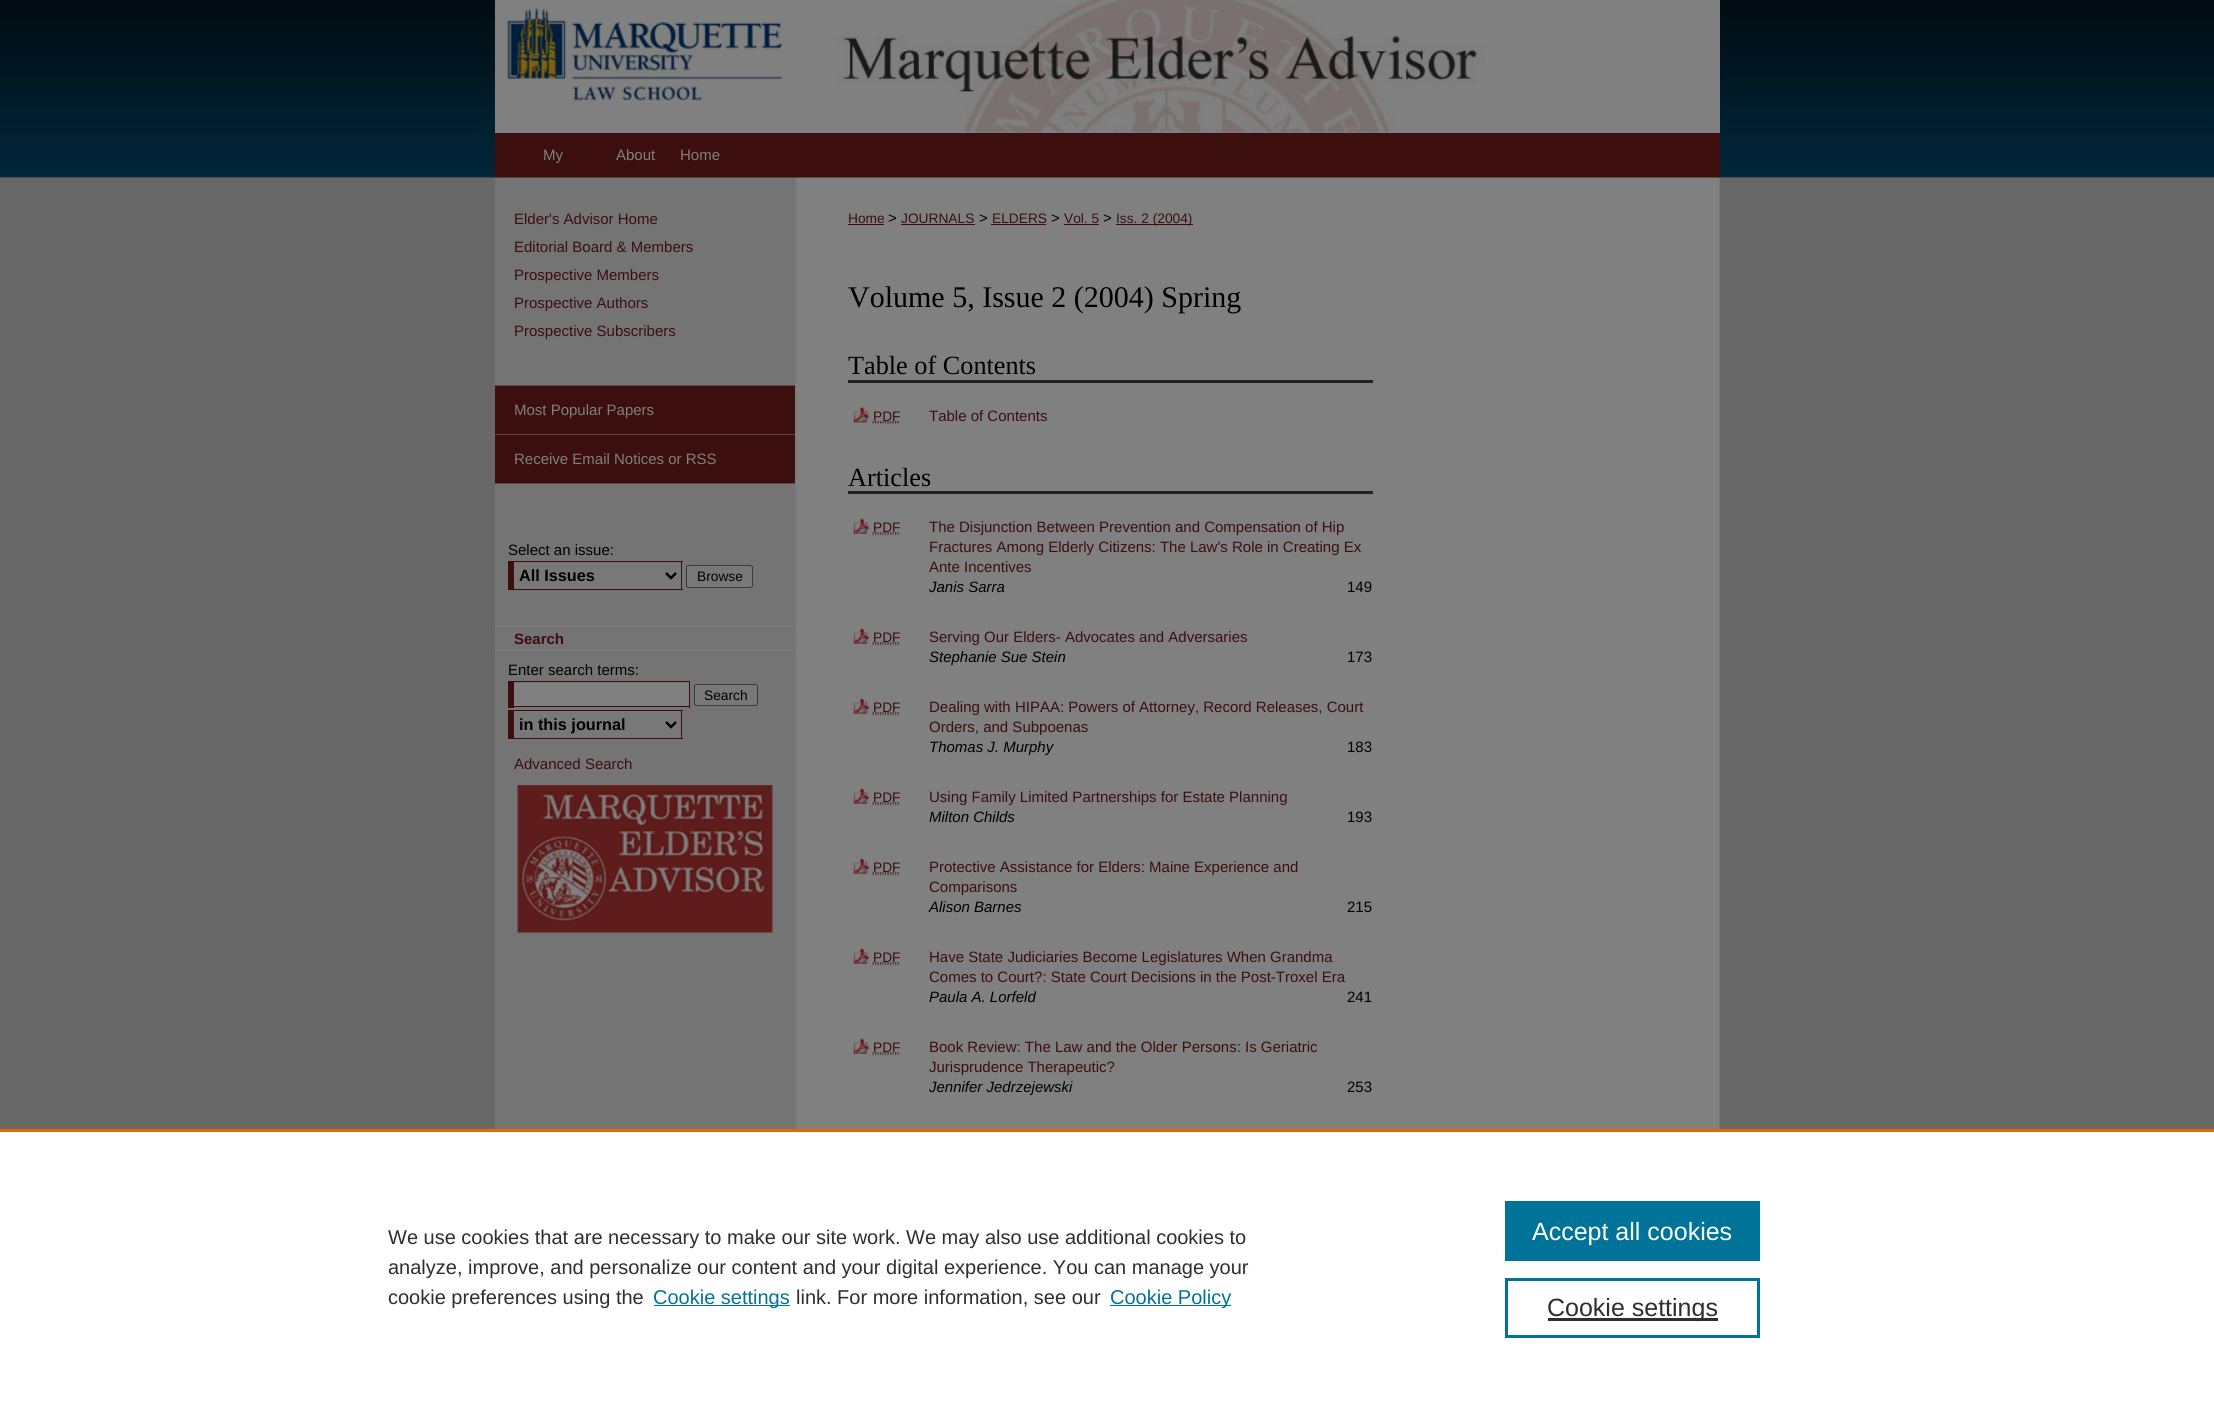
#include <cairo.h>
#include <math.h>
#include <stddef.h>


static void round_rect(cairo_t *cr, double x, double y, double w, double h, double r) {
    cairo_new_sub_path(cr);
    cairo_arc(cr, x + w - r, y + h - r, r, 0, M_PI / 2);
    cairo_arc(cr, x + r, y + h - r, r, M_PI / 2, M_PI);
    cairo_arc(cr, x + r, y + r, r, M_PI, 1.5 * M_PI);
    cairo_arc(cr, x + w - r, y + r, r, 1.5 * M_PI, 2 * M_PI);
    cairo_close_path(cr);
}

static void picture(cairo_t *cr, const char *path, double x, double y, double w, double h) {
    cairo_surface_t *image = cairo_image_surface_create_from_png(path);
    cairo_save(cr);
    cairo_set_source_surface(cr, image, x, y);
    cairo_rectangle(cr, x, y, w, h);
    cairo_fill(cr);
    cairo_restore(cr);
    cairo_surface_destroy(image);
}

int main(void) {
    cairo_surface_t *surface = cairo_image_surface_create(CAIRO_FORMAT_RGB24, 2214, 1403);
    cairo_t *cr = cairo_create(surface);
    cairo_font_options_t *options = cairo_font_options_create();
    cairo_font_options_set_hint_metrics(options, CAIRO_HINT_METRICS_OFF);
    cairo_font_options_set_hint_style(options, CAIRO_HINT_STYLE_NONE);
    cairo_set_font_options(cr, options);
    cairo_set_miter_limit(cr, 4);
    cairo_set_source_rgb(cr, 0.408, 0.408, 0.408);
    cairo_paint(cr);
    picture(cr, "img1.png", 0, 0, 2214, 178);
    cairo_set_source_rgb(cr, 0.502, 0.502, 0.502);
    cairo_rectangle(cr, 495, 0, 1225, 133);
    cairo_fill(cr);
    picture(cr, "img2.png", 507, 7, 276, 94);
    picture(cr, "img3.png", 835, 0, 650, 133);
    cairo_set_source_rgb(cr, 0.235, 0.055, 0.055);
    cairo_rectangle(cr, 495, 133, 1225, 45);
    cairo_fill(cr);
    cairo_select_font_face(cr, "Liberation Sans", CAIRO_FONT_SLANT_NORMAL, CAIRO_FONT_WEIGHT_NORMAL);
    cairo_set_font_size(cr, 15);
    cairo_set_source_rgb(cr, 0.502, 0.502, 0.502);
    cairo_move_to(cr, 543, 160);
    cairo_show_text(cr, "My");
    cairo_move_to(cr, 616, 160);
    cairo_show_text(cr, "About");
    cairo_move_to(cr, 680, 160);
    cairo_show_text(cr, "Home");
    picture(cr, "img4.png", 495, 177, 1225, 952);
    cairo_set_source_rgb(cr, 0.235, 0.055, 0.055);
    cairo_move_to(cr, 514, 224);
    cairo_show_text(cr, "Elder's Advisor Home");
    cairo_move_to(cr, 514, 252);
    cairo_show_text(cr, "Editorial Board & Members");
    cairo_move_to(cr, 514, 280);
    cairo_show_text(cr, "Prospective Members");
    cairo_move_to(cr, 514, 308);
    cairo_show_text(cr, "Prospective Authors");
    cairo_move_to(cr, 514, 336);
    cairo_show_text(cr, "Prospective Subscribers");
    cairo_set_source_rgb(cr, 0.361, 0.29, 0.29);
    cairo_rectangle(cr, 495, 385, 300, 1);
    cairo_fill(cr);
    cairo_set_source_rgb(cr, 0.235, 0.055, 0.055);
    cairo_rectangle(cr, 495, 386, 300, 48);
    cairo_fill(cr);
    cairo_set_source_rgb(cr, 0.361, 0.29, 0.29);
    cairo_rectangle(cr, 495, 434, 300, 1);
    cairo_fill(cr);
    cairo_set_source_rgb(cr, 0.502, 0.502, 0.502);
    cairo_move_to(cr, 514, 415);
    cairo_show_text(cr, "Most Popular Papers");
    cairo_set_source_rgb(cr, 0.235, 0.055, 0.055);
    cairo_rectangle(cr, 495, 435, 300, 48);
    cairo_fill(cr);
    cairo_set_source_rgb(cr, 0.361, 0.29, 0.29);
    cairo_rectangle(cr, 495, 483, 300, 1);
    cairo_fill(cr);
    cairo_set_source_rgb(cr, 0.502, 0.502, 0.502);
    cairo_move_to(cr, 514, 464);
    cairo_show_text(cr, "Receive Email Notices or RSS");
    cairo_set_source_rgb(cr, 0, 0, 0);
    cairo_move_to(cr, 508, 555);
    cairo_show_text(cr, "Select an issue:");
    cairo_set_source_rgb(cr, 0.471, 0.471, 0.471);
    cairo_rectangle(cr, 514, 563, 167, 26);
    cairo_fill(cr);
    cairo_set_source_rgb(cr, 0.235, 0.055, 0.055);
    cairo_rectangle(cr, 508, 561, 175, 1);
    cairo_fill(cr);
    cairo_rectangle(cr, 681, 561, 1, 29);
    cairo_fill(cr);
    cairo_rectangle(cr, 508, 589, 175, 1);
    cairo_fill(cr);
    cairo_rectangle(cr, 508, 561, 6, 29);
    cairo_fill(cr);
    cairo_new_path(cr);
    cairo_move_to(cr, 666, 573);
    cairo_line_to(cr, 671, 578);
    cairo_line_to(cr, 676, 573);
    cairo_set_source_rgb(cr, 0, 0, 0);
    cairo_set_line_width(cr, 2.5);
    cairo_stroke(cr);
    cairo_select_font_face(cr, "Liberation Sans", CAIRO_FONT_SLANT_NORMAL, CAIRO_FONT_WEIGHT_BOLD);
    cairo_set_font_size(cr, 16.25);
    cairo_move_to(cr, 519, 581);
    cairo_show_text(cr, "All Issues");
    cairo_set_source_rgb(cr, 0.471, 0.471, 0.471);
    round_rect(cr, 686.5, 565.5, 66, 22, 2);
    cairo_fill_preserve(cr);
    cairo_set_source_rgb(cr, 0.231, 0.231, 0.231);
    cairo_set_line_width(cr, 1);
    cairo_stroke(cr);
    cairo_select_font_face(cr, "Liberation Sans", CAIRO_FONT_SLANT_NORMAL, CAIRO_FONT_WEIGHT_NORMAL);
    cairo_set_font_size(cr, 13.75);
    cairo_set_source_rgb(cr, 0, 0, 0);
    cairo_move_to(cr, 697, 581);
    cairo_show_text(cr, "Browse");
    cairo_set_source_rgb(cr, 0.502, 0.502, 0.502);
    cairo_rectangle(cr, 495, 626, 300, 1);
    cairo_fill(cr);
    cairo_rectangle(cr, 495, 650, 300, 1);
    cairo_fill(cr);
    cairo_select_font_face(cr, "Liberation Sans", CAIRO_FONT_SLANT_NORMAL, CAIRO_FONT_WEIGHT_BOLD);
    cairo_set_font_size(cr, 15);
    cairo_set_source_rgb(cr, 0.235, 0.055, 0.055);
    cairo_move_to(cr, 514, 644);
    cairo_show_text(cr, "Search");
    cairo_select_font_face(cr, "Liberation Sans", CAIRO_FONT_SLANT_NORMAL, CAIRO_FONT_WEIGHT_NORMAL);
    cairo_set_source_rgb(cr, 0, 0, 0);
    cairo_move_to(cr, 508, 675);
    cairo_show_text(cr, "Enter search terms:");
    cairo_set_source_rgb(cr, 0.502, 0.502, 0.502);
    cairo_rectangle(cr, 514, 683, 175, 23);
    cairo_fill(cr);
    cairo_set_source_rgb(cr, 0.235, 0.055, 0.055);
    cairo_rectangle(cr, 508, 681, 182, 1);
    cairo_fill(cr);
    cairo_rectangle(cr, 689, 681, 1, 27);
    cairo_fill(cr);
    cairo_rectangle(cr, 508, 706, 182, 1);
    cairo_fill(cr);
    cairo_rectangle(cr, 508, 681, 6, 27);
    cairo_fill(cr);
    cairo_set_source_rgb(cr, 0.471, 0.471, 0.471);
    round_rect(cr, 694.5, 684.5, 63, 21, 2);
    cairo_fill_preserve(cr);
    cairo_set_source_rgb(cr, 0.231, 0.231, 0.231);
    cairo_stroke(cr);
    cairo_set_font_size(cr, 13.75);
    cairo_set_source_rgb(cr, 0, 0, 0);
    cairo_move_to(cr, 704, 700);
    cairo_show_text(cr, "Search");
    cairo_set_source_rgb(cr, 0.471, 0.471, 0.471);
    cairo_rectangle(cr, 514, 711, 167, 27);
    cairo_fill(cr);
    cairo_set_source_rgb(cr, 0.235, 0.055, 0.055);
    cairo_rectangle(cr, 508, 710, 175, 1);
    cairo_fill(cr);
    cairo_rectangle(cr, 681, 710, 1, 29);
    cairo_fill(cr);
    cairo_rectangle(cr, 508, 738, 175, 1);
    cairo_fill(cr);
    cairo_rectangle(cr, 508, 710, 6, 29);
    cairo_fill(cr);
    cairo_new_path(cr);
    cairo_move_to(cr, 666, 722);
    cairo_line_to(cr, 671, 727);
    cairo_line_to(cr, 676, 722);
    cairo_set_source_rgb(cr, 0, 0, 0);
    cairo_set_line_width(cr, 2.5);
    cairo_stroke(cr);
    cairo_select_font_face(cr, "Liberation Sans", CAIRO_FONT_SLANT_NORMAL, CAIRO_FONT_WEIGHT_BOLD);
    cairo_set_font_size(cr, 16.25);
    cairo_move_to(cr, 519, 730);
    cairo_show_text(cr, "in this journal");
    cairo_select_font_face(cr, "Liberation Sans", CAIRO_FONT_SLANT_NORMAL, CAIRO_FONT_WEIGHT_NORMAL);
    cairo_set_font_size(cr, 15);
    cairo_set_source_rgb(cr, 0.235, 0.055, 0.055);
    cairo_move_to(cr, 514, 769);
    cairo_show_text(cr, "Advanced Search");
    picture(cr, "img5.png", 517, 785, 256, 148);
    cairo_set_font_size(cr, 13.75);
    cairo_move_to(cr, 848, 223);
    cairo_show_text(cr, "Home");
    cairo_rectangle(cr, 848, 224, 36, 1);
    cairo_fill(cr);
    cairo_set_font_size(cr, 15);
    cairo_set_source_rgb(cr, 0, 0, 0);
    cairo_move_to(cr, 888, 223);
    cairo_show_text(cr, ">");
    cairo_set_font_size(cr, 13.75);
    cairo_set_source_rgb(cr, 0.235, 0.055, 0.055);
    cairo_move_to(cr, 901, 223);
    cairo_show_text(cr, "JOURNALS");
    cairo_rectangle(cr, 901, 224, 74, 1);
    cairo_fill(cr);
    cairo_set_font_size(cr, 15);
    cairo_set_source_rgb(cr, 0, 0, 0);
    cairo_move_to(cr, 979, 223);
    cairo_show_text(cr, ">");
    cairo_set_font_size(cr, 13.75);
    cairo_set_source_rgb(cr, 0.235, 0.055, 0.055);
    cairo_move_to(cr, 992, 223);
    cairo_show_text(cr, "ELDERS");
    cairo_rectangle(cr, 991, 224, 55, 1);
    cairo_fill(cr);
    cairo_set_font_size(cr, 15);
    cairo_set_source_rgb(cr, 0, 0, 0);
    cairo_move_to(cr, 1051, 223);
    cairo_show_text(cr, ">");
    cairo_set_font_size(cr, 13.75);
    cairo_set_source_rgb(cr, 0.235, 0.055, 0.055);
    cairo_move_to(cr, 1064, 223);
    cairo_show_text(cr, "Vol. 5");
    cairo_rectangle(cr, 1064, 224, 35, 1);
    cairo_fill(cr);
    cairo_set_font_size(cr, 15);
    cairo_set_source_rgb(cr, 0, 0, 0);
    cairo_move_to(cr, 1103, 223);
    cairo_show_text(cr, ">");
    cairo_set_source_rgb(cr, 0.235, 0.055, 0.055);
    cairo_rectangle(cr, 1116, 224, 77, 1);
    cairo_fill(cr);
    cairo_set_font_size(cr, 13.75);
    cairo_move_to(cr, 1116, 223);
    cairo_show_text(cr, "Iss. 2 (2004)");
    cairo_select_font_face(cr, "Liberation Serif", CAIRO_FONT_SLANT_NORMAL, CAIRO_FONT_WEIGHT_NORMAL);
    cairo_set_font_size(cr, 30);
    cairo_set_source_rgb(cr, 0, 0, 0);
    cairo_move_to(cr, 848, 307);
    cairo_show_text(cr, "Volume 5, Issue 2 (2004) Spring");
    cairo_set_source_rgb(cr, 0.137, 0.137, 0.137);
    cairo_rectangle(cr, 848, 380, 525, 3);
    cairo_fill(cr);
    cairo_set_font_size(cr, 26.25);
    cairo_set_source_rgb(cr, 0, 0, 0);
    cairo_move_to(cr, 848, 374);
    cairo_show_text(cr, "Table of Contents");
    picture(cr, "img6.png", 853, 407, 16, 16);
    cairo_select_font_face(cr, "Liberation Sans", CAIRO_FONT_SLANT_NORMAL, CAIRO_FONT_WEIGHT_NORMAL);
    cairo_set_font_size(cr, 13.75);
    cairo_set_source_rgb(cr, 0.235, 0.055, 0.055);
    cairo_move_to(cr, 873, 421);
    cairo_show_text(cr, "PDF");
    cairo_new_path(cr);
    cairo_move_to(cr, 872.5, 423);
    cairo_line_to(cr, 900, 423);
    cairo_set_source_rgb(cr, 0.302, 0.302, 0.302);
    cairo_set_line_width(cr, 1.2);
    cairo_set_dash(cr, (double[]){1.25, 1.25}, 2, 0);
    cairo_stroke(cr);
    cairo_new_path(cr);
    cairo_move_to(cr, 872.5, 422);
    cairo_line_to(cr, 900, 422);
    cairo_set_source_rgb(cr, 0.235, 0.055, 0.055);
    cairo_stroke(cr);
    cairo_set_font_size(cr, 15);
    cairo_move_to(cr, 929, 421);
    cairo_show_text(cr, "Table of Contents");
    cairo_set_source_rgb(cr, 0.137, 0.137, 0.137);
    cairo_rectangle(cr, 848, 491, 525, 3);
    cairo_fill(cr);
    cairo_select_font_face(cr, "Liberation Serif", CAIRO_FONT_SLANT_NORMAL, CAIRO_FONT_WEIGHT_NORMAL);
    cairo_set_font_size(cr, 26.25);
    cairo_set_source_rgb(cr, 0, 0, 0);
    cairo_move_to(cr, 848, 486);
    cairo_show_text(cr, "Articles");
    picture(cr, "img7.png", 853, 518, 16, 16);
    cairo_select_font_face(cr, "Liberation Sans", CAIRO_FONT_SLANT_NORMAL, CAIRO_FONT_WEIGHT_NORMAL);
    cairo_set_font_size(cr, 13.75);
    cairo_set_source_rgb(cr, 0.235, 0.055, 0.055);
    cairo_move_to(cr, 873, 532);
    cairo_show_text(cr, "PDF");
    cairo_new_path(cr);
    cairo_move_to(cr, 872.5, 534.5);
    cairo_line_to(cr, 900, 534.5);
    cairo_set_source_rgb(cr, 0.302, 0.302, 0.302);
    cairo_stroke(cr);
    cairo_new_path(cr);
    cairo_move_to(cr, 872.5, 533);
    cairo_line_to(cr, 900, 533);
    cairo_set_source_rgb(cr, 0.235, 0.055, 0.055);
    cairo_stroke(cr);
    cairo_set_font_size(cr, 15);
    cairo_move_to(cr, 929, 532);
    cairo_show_text(cr, "The Disjunction Between Prevention and Compensation of Hip");
    cairo_move_to(cr, 929, 552);
    cairo_show_text(cr, "Fractures Among Elderly Citizens: The Law's Role in Creating Ex");
    cairo_move_to(cr, 929, 572);
    cairo_show_text(cr, "Ante Incentives");
    cairo_select_font_face(cr, "Liberation Sans", CAIRO_FONT_SLANT_ITALIC, CAIRO_FONT_WEIGHT_NORMAL);
    cairo_set_source_rgb(cr, 0, 0, 0);
    cairo_move_to(cr, 929, 592);
    cairo_show_text(cr, "Janis Sarra");
    cairo_select_font_face(cr, "Liberation Sans", CAIRO_FONT_SLANT_NORMAL, CAIRO_FONT_WEIGHT_NORMAL);
    cairo_move_to(cr, 1347, 592);
    cairo_show_text(cr, "149");
    picture(cr, "img7.png", 853, 628, 16, 16);
    cairo_set_font_size(cr, 13.75);
    cairo_set_source_rgb(cr, 0.235, 0.055, 0.055);
    cairo_move_to(cr, 873, 642);
    cairo_show_text(cr, "PDF");
    cairo_new_path(cr);
    cairo_move_to(cr, 872.5, 644.5);
    cairo_line_to(cr, 900, 644.5);
    cairo_set_source_rgb(cr, 0.302, 0.302, 0.302);
    cairo_stroke(cr);
    cairo_new_path(cr);
    cairo_move_to(cr, 872.5, 643);
    cairo_line_to(cr, 900, 643);
    cairo_set_source_rgb(cr, 0.235, 0.055, 0.055);
    cairo_stroke(cr);
    cairo_set_font_size(cr, 15);
    cairo_move_to(cr, 929, 642);
    cairo_show_text(cr, "Serving Our Elders- Advocates and Adversaries");
    cairo_select_font_face(cr, "Liberation Sans", CAIRO_FONT_SLANT_ITALIC, CAIRO_FONT_WEIGHT_NORMAL);
    cairo_set_source_rgb(cr, 0, 0, 0);
    cairo_move_to(cr, 929, 662);
    cairo_show_text(cr, "Stephanie Sue Stein");
    cairo_select_font_face(cr, "Liberation Sans", CAIRO_FONT_SLANT_NORMAL, CAIRO_FONT_WEIGHT_NORMAL);
    cairo_move_to(cr, 1347, 662);
    cairo_show_text(cr, "173");
    picture(cr, "img7.png", 853, 698, 16, 16);
    cairo_set_font_size(cr, 13.75);
    cairo_set_source_rgb(cr, 0.235, 0.055, 0.055);
    cairo_move_to(cr, 873, 712);
    cairo_show_text(cr, "PDF");
    cairo_new_path(cr);
    cairo_move_to(cr, 872.5, 714.5);
    cairo_line_to(cr, 900, 714.5);
    cairo_set_source_rgb(cr, 0.302, 0.302, 0.302);
    cairo_stroke(cr);
    cairo_new_path(cr);
    cairo_move_to(cr, 872.5, 713);
    cairo_line_to(cr, 900, 713);
    cairo_set_source_rgb(cr, 0.235, 0.055, 0.055);
    cairo_stroke(cr);
    cairo_set_font_size(cr, 15);
    cairo_move_to(cr, 929, 712);
    cairo_show_text(cr, "Dealing with HIPAA: Powers of Attorney, Record Releases, Court");
    cairo_move_to(cr, 929, 732);
    cairo_show_text(cr, "Orders, and Subpoenas");
    cairo_select_font_face(cr, "Liberation Sans", CAIRO_FONT_SLANT_ITALIC, CAIRO_FONT_WEIGHT_NORMAL);
    cairo_set_source_rgb(cr, 0, 0, 0);
    cairo_move_to(cr, 929, 752);
    cairo_show_text(cr, "Thomas J. Murphy");
    cairo_select_font_face(cr, "Liberation Sans", CAIRO_FONT_SLANT_NORMAL, CAIRO_FONT_WEIGHT_NORMAL);
    cairo_move_to(cr, 1347, 752);
    cairo_show_text(cr, "183");
    picture(cr, "img7.png", 853, 788, 16, 16);
    cairo_set_font_size(cr, 13.75);
    cairo_set_source_rgb(cr, 0.235, 0.055, 0.055);
    cairo_move_to(cr, 873, 802);
    cairo_show_text(cr, "PDF");
    cairo_new_path(cr);
    cairo_move_to(cr, 872.5, 804.5);
    cairo_line_to(cr, 900, 804.5);
    cairo_set_source_rgb(cr, 0.302, 0.302, 0.302);
    cairo_stroke(cr);
    cairo_new_path(cr);
    cairo_move_to(cr, 872.5, 803);
    cairo_line_to(cr, 900, 803);
    cairo_set_source_rgb(cr, 0.235, 0.055, 0.055);
    cairo_stroke(cr);
    cairo_set_font_size(cr, 15);
    cairo_move_to(cr, 929, 802);
    cairo_show_text(cr, "Using Family Limited Partnerships for Estate Planning");
    cairo_select_font_face(cr, "Liberation Sans", CAIRO_FONT_SLANT_ITALIC, CAIRO_FONT_WEIGHT_NORMAL);
    cairo_set_source_rgb(cr, 0, 0, 0);
    cairo_move_to(cr, 929, 822);
    cairo_show_text(cr, "Milton Childs");
    cairo_select_font_face(cr, "Liberation Sans", CAIRO_FONT_SLANT_NORMAL, CAIRO_FONT_WEIGHT_NORMAL);
    cairo_move_to(cr, 1347, 822);
    cairo_show_text(cr, "193");
    picture(cr, "img7.png", 853, 858, 16, 16);
    cairo_set_font_size(cr, 13.75);
    cairo_set_source_rgb(cr, 0.235, 0.055, 0.055);
    cairo_move_to(cr, 873, 872);
    cairo_show_text(cr, "PDF");
    cairo_new_path(cr);
    cairo_move_to(cr, 872.5, 874.5);
    cairo_line_to(cr, 900, 874.5);
    cairo_set_source_rgb(cr, 0.302, 0.302, 0.302);
    cairo_stroke(cr);
    cairo_new_path(cr);
    cairo_move_to(cr, 872.5, 873);
    cairo_line_to(cr, 900, 873);
    cairo_set_source_rgb(cr, 0.235, 0.055, 0.055);
    cairo_stroke(cr);
    cairo_set_font_size(cr, 15);
    cairo_move_to(cr, 929, 872);
    cairo_show_text(cr, "Protective Assistance for Elders: Maine Experience and");
    cairo_move_to(cr, 929, 892);
    cairo_show_text(cr, "Comparisons");
    cairo_select_font_face(cr, "Liberation Sans", CAIRO_FONT_SLANT_ITALIC, CAIRO_FONT_WEIGHT_NORMAL);
    cairo_set_source_rgb(cr, 0, 0, 0);
    cairo_move_to(cr, 929, 912);
    cairo_show_text(cr, "Alison Barnes");
    cairo_select_font_face(cr, "Liberation Sans", CAIRO_FONT_SLANT_NORMAL, CAIRO_FONT_WEIGHT_NORMAL);
    cairo_move_to(cr, 1347, 912);
    cairo_show_text(cr, "215");
    picture(cr, "img7.png", 853, 948, 16, 16);
    cairo_set_font_size(cr, 13.75);
    cairo_set_source_rgb(cr, 0.235, 0.055, 0.055);
    cairo_move_to(cr, 873, 962);
    cairo_show_text(cr, "PDF");
    cairo_new_path(cr);
    cairo_move_to(cr, 872.5, 964.5);
    cairo_line_to(cr, 900, 964.5);
    cairo_set_source_rgb(cr, 0.302, 0.302, 0.302);
    cairo_stroke(cr);
    cairo_new_path(cr);
    cairo_move_to(cr, 872.5, 963);
    cairo_line_to(cr, 900, 963);
    cairo_set_source_rgb(cr, 0.235, 0.055, 0.055);
    cairo_stroke(cr);
    cairo_set_font_size(cr, 15);
    cairo_move_to(cr, 929, 962);
    cairo_show_text(cr, "Have State Judiciaries Become Legislatures When Grandma");
    cairo_move_to(cr, 929, 982);
    cairo_show_text(cr, "Comes to Court?: State Court Decisions in the Post-Troxel Era");
    cairo_select_font_face(cr, "Liberation Sans", CAIRO_FONT_SLANT_ITALIC, CAIRO_FONT_WEIGHT_NORMAL);
    cairo_set_source_rgb(cr, 0, 0, 0);
    cairo_move_to(cr, 929, 1002);
    cairo_show_text(cr, "Paula A. Lorfeld");
    cairo_select_font_face(cr, "Liberation Sans", CAIRO_FONT_SLANT_NORMAL, CAIRO_FONT_WEIGHT_NORMAL);
    cairo_move_to(cr, 1347, 1002);
    cairo_show_text(cr, "241");
    picture(cr, "img7.png", 853, 1038, 16, 16);
    cairo_set_font_size(cr, 13.75);
    cairo_set_source_rgb(cr, 0.235, 0.055, 0.055);
    cairo_move_to(cr, 873, 1052);
    cairo_show_text(cr, "PDF");
    cairo_new_path(cr);
    cairo_move_to(cr, 872.5, 1054.5);
    cairo_line_to(cr, 900, 1054.5);
    cairo_set_source_rgb(cr, 0.302, 0.302, 0.302);
    cairo_stroke(cr);
    cairo_new_path(cr);
    cairo_move_to(cr, 872.5, 1053);
    cairo_line_to(cr, 900, 1053);
    cairo_set_source_rgb(cr, 0.235, 0.055, 0.055);
    cairo_stroke(cr);
    cairo_set_font_size(cr, 15);
    cairo_move_to(cr, 929, 1052);
    cairo_show_text(cr, "Book Review: The Law and the Older Persons: Is Geriatric");
    cairo_move_to(cr, 929, 1072);
    cairo_show_text(cr, "Jurisprudence Therapeutic?");
    cairo_select_font_face(cr, "Liberation Sans", CAIRO_FONT_SLANT_ITALIC, CAIRO_FONT_WEIGHT_NORMAL);
    cairo_set_source_rgb(cr, 0, 0, 0);
    cairo_move_to(cr, 929, 1092);
    cairo_show_text(cr, "Jennifer Jedrzejewski");
    cairo_select_font_face(cr, "Liberation Sans", CAIRO_FONT_SLANT_NORMAL, CAIRO_FONT_WEIGHT_NORMAL);
    cairo_move_to(cr, 1347, 1092);
    cairo_show_text(cr, "253");
    cairo_set_source_rgb(cr, 1, 1, 1);
    cairo_rectangle(cr, 0, 1132, 2214, 271);
    cairo_fill(cr);
    cairo_set_source_rgb(cr, 0.922, 0.396, 0);
    cairo_rectangle(cr, 0, 1129, 2214, 3);
    cairo_fill(cr);
    cairo_set_font_size(cr, 20);
    cairo_set_source_rgb(cr, 0.18, 0.18, 0.18);
    cairo_move_to(cr, 388, 1244);
    cairo_show_text(cr, "We use cookies that are necessary to make our site work. We may also use additional cookies to");
    cairo_move_to(cr, 388, 1274);
    cairo_show_text(cr, "analyze, improve, and personalize our content and your digital experience. You can manage your");
    cairo_move_to(cr, 388, 1304);
    cairo_show_text(cr, "cookie preferences using the");
    cairo_set_source_rgb(cr, 0, 0.451, 0.596);
    cairo_rectangle(cr, 654, 1305, 136, 1);
    cairo_fill(cr);
    cairo_move_to(cr, 653, 1304);
    cairo_show_text(cr, "Cookie settings");
    cairo_set_source_rgb(cr, 0.18, 0.18, 0.18);
    cairo_move_to(cr, 796, 1304);
    cairo_show_text(cr, "link. For more information, see our");
    cairo_set_source_rgb(cr, 0, 0.451, 0.596);
    cairo_rectangle(cr, 1110, 1305, 121, 1);
    cairo_fill(cr);
    cairo_move_to(cr, 1110, 1304);
    cairo_show_text(cr, "Cookie Policy");
    cairo_rectangle(cr, 1505, 1201, 255, 60);
    cairo_fill(cr);
    cairo_set_font_size(cr, 25);
    cairo_set_source_rgb(cr, 1, 1, 1);
    cairo_move_to(cr, 1532, 1240);
    cairo_show_text(cr, "Accept all cookies");
    cairo_rectangle(cr, 1506.5, 1279.5, 252, 57);
    cairo_set_source_rgb(cr, 0, 0.451, 0.596);
    cairo_set_line_width(cr, 3);
    cairo_set_dash(cr, NULL, 0, 0);
    cairo_stroke(cr);
    cairo_set_source_rgb(cr, 0.18, 0.18, 0.18);
    cairo_rectangle(cr, 1548, 1318, 170, 3);
    cairo_fill(cr);
    cairo_move_to(cr, 1547, 1316);
    cairo_show_text(cr, "Cookie settings");
    cairo_surface_write_to_png(surface, "page.png");
    cairo_font_options_destroy(options);
    cairo_destroy(cr);
    cairo_surface_destroy(surface);
    return 0;
}
